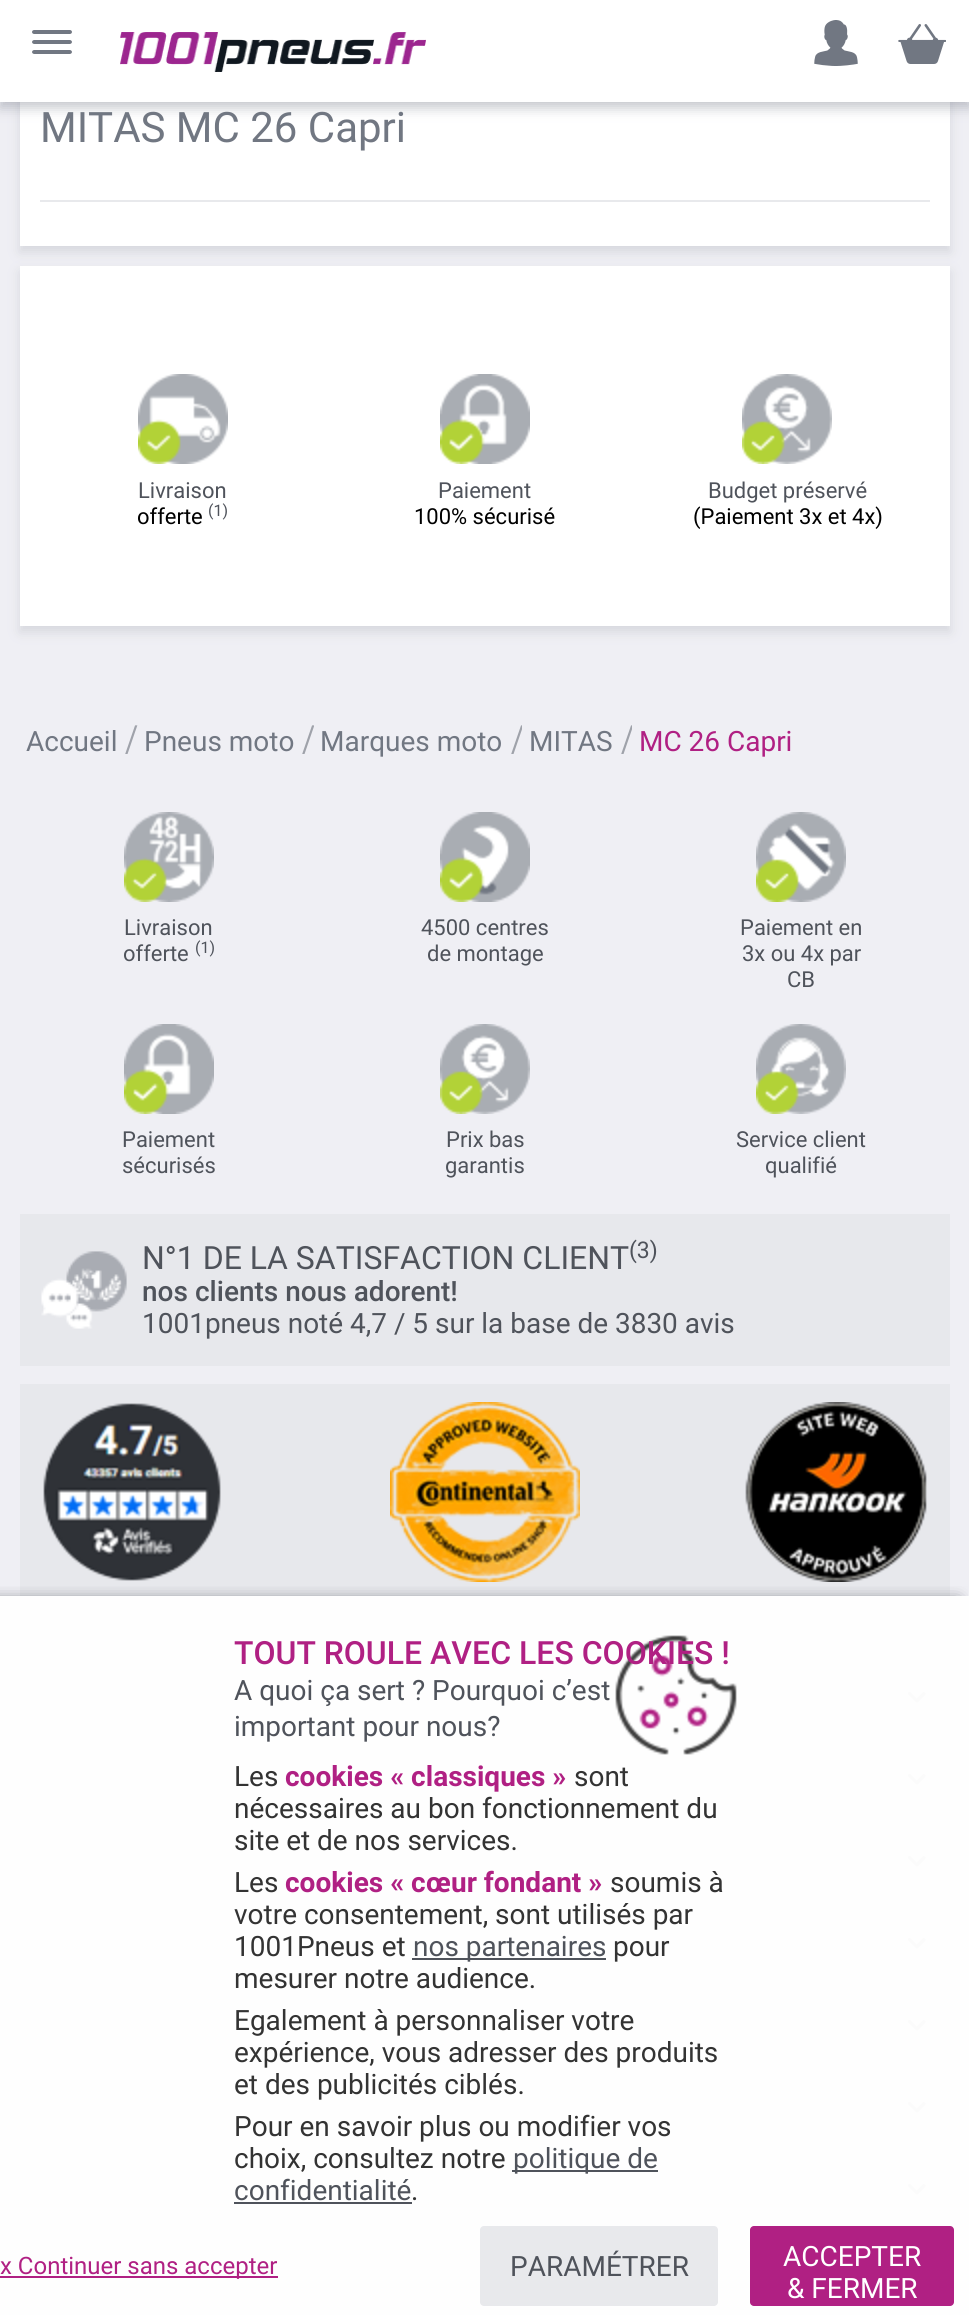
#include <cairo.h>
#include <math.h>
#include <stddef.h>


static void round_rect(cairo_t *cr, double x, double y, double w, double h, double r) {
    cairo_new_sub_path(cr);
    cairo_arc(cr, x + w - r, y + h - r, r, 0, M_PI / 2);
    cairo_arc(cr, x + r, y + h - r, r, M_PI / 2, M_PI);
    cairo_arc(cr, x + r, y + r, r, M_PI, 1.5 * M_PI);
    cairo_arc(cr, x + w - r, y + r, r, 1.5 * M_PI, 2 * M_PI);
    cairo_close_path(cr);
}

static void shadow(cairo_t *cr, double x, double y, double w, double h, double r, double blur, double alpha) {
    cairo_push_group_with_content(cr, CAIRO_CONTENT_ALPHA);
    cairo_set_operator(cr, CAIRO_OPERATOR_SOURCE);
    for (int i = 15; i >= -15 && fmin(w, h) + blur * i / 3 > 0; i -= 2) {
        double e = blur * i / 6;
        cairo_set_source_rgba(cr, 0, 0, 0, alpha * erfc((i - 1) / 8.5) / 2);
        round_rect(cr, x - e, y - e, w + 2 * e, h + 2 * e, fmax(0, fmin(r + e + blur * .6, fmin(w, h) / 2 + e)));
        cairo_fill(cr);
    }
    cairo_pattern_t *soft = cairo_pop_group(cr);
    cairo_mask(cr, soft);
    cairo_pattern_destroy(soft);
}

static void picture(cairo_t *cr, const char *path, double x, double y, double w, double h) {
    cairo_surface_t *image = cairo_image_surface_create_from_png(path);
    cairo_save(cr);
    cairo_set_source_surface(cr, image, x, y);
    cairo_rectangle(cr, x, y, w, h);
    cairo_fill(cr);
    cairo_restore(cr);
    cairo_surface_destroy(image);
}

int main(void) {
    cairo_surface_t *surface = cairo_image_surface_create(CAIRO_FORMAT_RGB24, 969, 2315);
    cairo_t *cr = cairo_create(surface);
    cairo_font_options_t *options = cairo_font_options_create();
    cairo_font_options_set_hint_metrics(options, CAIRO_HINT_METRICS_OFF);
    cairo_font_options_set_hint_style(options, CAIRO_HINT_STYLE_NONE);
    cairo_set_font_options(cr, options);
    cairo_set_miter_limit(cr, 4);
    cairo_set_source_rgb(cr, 0.937, 0.937, 0.957);
    cairo_paint(cr);
    cairo_set_source_rgb(cr, 0.996, 0.996, 0.996);
    cairo_rectangle(cr, 0, 1596, 969, 719);
    cairo_fill(cr);
    cairo_set_source_rgb(cr, 0.443, 0.467, 0.51);
    shadow(cr, 20, -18, 930, 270, 0, 6, 0.2);
    cairo_set_source_rgb(cr, 1, 1, 1);
    cairo_rectangle(cr, 20, 102, 930, 144);
    cairo_fill(cr);
    cairo_set_source_rgb(cr, 0.443, 0.467, 0.51);
    shadow(cr, 0, 6, 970, 102, 0, 6, 0.4);
    cairo_set_source_rgb(cr, 1, 1, 1);
    cairo_rectangle(cr, 0, 0, 969, 102);
    cairo_fill(cr);
    picture(cr, "img1.png", 32, 30, 40, 24);
    picture(cr, "img2.png", 120, 32, 306, 40);
    picture(cr, "img3.png", 814, 20, 44, 46);
    picture(cr, "img4.png", 898, 24, 48, 40);
    cairo_select_font_face(cr, "Roboto", CAIRO_FONT_SLANT_NORMAL, CAIRO_FONT_WEIGHT_NORMAL);
    cairo_set_font_size(cr, 42);
    cairo_set_source_rgb(cr, 0.443, 0.467, 0.51);
    cairo_move_to(cr, 40, 142);
    cairo_show_text(cr, "MITAS MC 26 Capri");
    cairo_set_source_rgb(cr, 0.91, 0.914, 0.925);
    cairo_rectangle(cr, 40, 200, 890, 2);
    cairo_fill(cr);
    cairo_set_source_rgb(cr, 0.443, 0.467, 0.51);
    shadow(cr, 20, 272, 930, 360, 0, 6, 0.2);
    cairo_set_source_rgb(cr, 1, 1, 1);
    cairo_rectangle(cr, 20, 266, 930, 360);
    cairo_fill(cr);
    picture(cr, "img5.png", 138, 374, 90, 90);
    cairo_set_font_size(cr, 22);
    cairo_set_source_rgb(cr, 0.31, 0.325, 0.357);
    cairo_move_to(cr, 138, 498);
    cairo_show_text(cr, "Livraison");
    cairo_set_source_rgb(cr, 0, 0, 0);
    cairo_move_to(cr, 137, 524);
    cairo_show_text(cr, "offerte");
    cairo_set_font_size(cr, 16);
    cairo_set_source_rgb(cr, 0.31, 0.325, 0.357);
    cairo_move_to(cr, 208, 516);
    cairo_show_text(cr, "(1)");
    picture(cr, "img6.png", 440, 374, 90, 90);
    cairo_set_font_size(cr, 22);
    cairo_move_to(cr, 438, 498);
    cairo_show_text(cr, "Paiement");
    cairo_set_source_rgb(cr, 0, 0, 0);
    cairo_move_to(cr, 414, 524);
    cairo_show_text(cr, "100% sécurisé");
    picture(cr, "img7.png", 742, 374, 90, 90);
    cairo_set_source_rgb(cr, 0.31, 0.325, 0.357);
    cairo_move_to(cr, 708, 498);
    cairo_show_text(cr, "Budget préservé");
    cairo_set_source_rgb(cr, 0, 0, 0);
    cairo_move_to(cr, 693, 524);
    cairo_show_text(cr, "(Paiement 3x et 4x)");
    cairo_set_font_size(cr, 28);
    cairo_set_source_rgb(cr, 0.443, 0.467, 0.51);
    cairo_move_to(cr, 26, 751);
    cairo_show_text(cr, "Accueil");
    cairo_save(cr);
    cairo_rectangle(cr, 124, 718, 14, 36);
    cairo_clip(cr);
    cairo_select_font_face(cr, "Liberation Serif", CAIRO_FONT_SLANT_NORMAL, CAIRO_FONT_WEIGHT_NORMAL);
    cairo_set_font_size(cr, 48);
    cairo_set_source_rgb(cr, 0.624, 0.635, 0.667);
    cairo_move_to(cr, 124, 757);
    cairo_show_text(cr, "/");
    cairo_restore(cr);
    cairo_move_to(cr, 144, 751);
    cairo_show_text(cr, "Pneus moto");
    cairo_save(cr);
    cairo_rectangle(cr, 302, 718, 12, 36);
    cairo_clip(cr);
    cairo_select_font_face(cr, "Liberation Serif", CAIRO_FONT_SLANT_NORMAL, CAIRO_FONT_WEIGHT_NORMAL);
    cairo_set_font_size(cr, 48);
    cairo_set_source_rgb(cr, 0.624, 0.635, 0.667);
    cairo_move_to(cr, 301, 757);
    cairo_show_text(cr, "/");
    cairo_restore(cr);
    cairo_move_to(cr, 320, 751);
    cairo_show_text(cr, "Marques moto");
    cairo_save(cr);
    cairo_rectangle(cr, 510, 718, 12, 36);
    cairo_clip(cr);
    cairo_select_font_face(cr, "Liberation Serif", CAIRO_FONT_SLANT_NORMAL, CAIRO_FONT_WEIGHT_NORMAL);
    cairo_set_font_size(cr, 48);
    cairo_set_source_rgb(cr, 0.624, 0.635, 0.667);
    cairo_move_to(cr, 510, 757);
    cairo_show_text(cr, "/");
    cairo_restore(cr);
    cairo_move_to(cr, 529, 751);
    cairo_show_text(cr, "MITAS");
    cairo_save(cr);
    cairo_rectangle(cr, 620, 718, 12, 36);
    cairo_clip(cr);
    cairo_select_font_face(cr, "Liberation Serif", CAIRO_FONT_SLANT_NORMAL, CAIRO_FONT_WEIGHT_NORMAL);
    cairo_set_font_size(cr, 48);
    cairo_set_source_rgb(cr, 0.624, 0.635, 0.667);
    cairo_move_to(cr, 620, 757);
    cairo_show_text(cr, "/");
    cairo_restore(cr);
    cairo_set_source_rgb(cr, 0.69, 0.125, 0.514);
    cairo_move_to(cr, 639, 751);
    cairo_show_text(cr, "MC 26 Capri");
    picture(cr, "img8.png", 124, 812, 90, 90);
    cairo_set_font_size(cr, 22);
    cairo_set_source_rgb(cr, 0.31, 0.325, 0.357);
    cairo_move_to(cr, 124, 935);
    cairo_show_text(cr, "Livraison");
    cairo_move_to(cr, 123, 961);
    cairo_show_text(cr, "offerte");
    cairo_set_font_size(cr, 16);
    cairo_move_to(cr, 195, 953);
    cairo_show_text(cr, "(1)");
    picture(cr, "img9.png", 440, 812, 90, 90);
    cairo_set_font_size(cr, 22);
    cairo_move_to(cr, 421, 935);
    cairo_show_text(cr, "4500 centres");
    cairo_move_to(cr, 427, 961);
    cairo_show_text(cr, "de montage");
    picture(cr, "img10.png", 756, 812, 90, 90);
    cairo_move_to(cr, 740, 935);
    cairo_show_text(cr, "Paiement en");
    cairo_move_to(cr, 742, 961);
    cairo_show_text(cr, "3x ou 4x par");
    cairo_move_to(cr, 787, 987);
    cairo_show_text(cr, "CB");
    picture(cr, "img11.png", 124, 1024, 90, 90);
    cairo_move_to(cr, 122, 1147);
    cairo_show_text(cr, "Paiement");
    cairo_move_to(cr, 122, 1173);
    cairo_show_text(cr, "sécurisés");
    picture(cr, "img12.png", 440, 1024, 90, 90);
    cairo_move_to(cr, 446, 1147);
    cairo_show_text(cr, "Prix bas");
    cairo_move_to(cr, 445, 1173);
    cairo_show_text(cr, "garantis");
    picture(cr, "img13.png", 756, 1024, 90, 90);
    cairo_move_to(cr, 736, 1147);
    cairo_show_text(cr, "Service client");
    cairo_move_to(cr, 765, 1173);
    cairo_show_text(cr, "qualifié");
    cairo_set_source_rgb(cr, 0.906, 0.91, 0.925);
    cairo_rectangle(cr, 20, 1214, 930, 152);
    cairo_fill(cr);
    picture(cr, "img14.png", 41, 1251, 86, 78);
    cairo_set_font_size(cr, 32);
    cairo_set_source_rgb(cr, 0.31, 0.325, 0.357);
    cairo_move_to(cr, 142, 1269);
    cairo_show_text(cr, "N°1 DE LA SATISFACTION CLIENT");
    cairo_set_font_size(cr, 23);
    cairo_move_to(cr, 629, 1258);
    cairo_show_text(cr, "(3)");
    cairo_select_font_face(cr, "Roboto Medium", CAIRO_FONT_SLANT_NORMAL, CAIRO_FONT_WEIGHT_NORMAL);
    cairo_set_font_size(cr, 28);
    cairo_move_to(cr, 142, 1301);
    cairo_show_text(cr, "nos clients nous adorent!");
    cairo_select_font_face(cr, "Roboto", CAIRO_FONT_SLANT_NORMAL, CAIRO_FONT_WEIGHT_NORMAL);
    cairo_move_to(cr, 142, 1333);
    cairo_show_text(cr, "1001pneus noté 4,7 / 5 sur la base de 3830 avis");
    cairo_set_source_rgb(cr, 0.906, 0.91, 0.925);
    cairo_rectangle(cr, 20, 1384, 930, 212);
    cairo_fill(cr);
    picture(cr, "img15.png", 43, 1403, 178, 178);
    picture(cr, "img16.png", 390, 1402, 190, 180);
    picture(cr, "img17.png", 745, 1402, 182, 180);
    picture(cr, "img18.png", 908, 1692, 18, 11);
    picture(cr, "img18.png", 908, 1774, 18, 11);
    picture(cr, "img18.png", 908, 1856, 18, 11);
    picture(cr, "img18.png", 908, 1938, 18, 11);
    picture(cr, "img18.png", 908, 2020, 18, 11);
    picture(cr, "img18.png", 908, 2102, 18, 11);
    picture(cr, "img18.png", 908, 2184, 18, 11);
    cairo_save(cr);
    cairo_rectangle(cr, 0, 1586, 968, 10);
    cairo_clip(cr);
    cairo_set_source_rgb(cr, 0.31, 0.325, 0.357);
    shadow(cr, -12, 1602, 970, 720, 0, 8, 1);
    cairo_restore(cr);
    picture(cr, "img19.png", 615, 1635, 122, 120);
    cairo_select_font_face(cr, "Roboto Medium", CAIRO_FONT_SLANT_NORMAL, CAIRO_FONT_WEIGHT_NORMAL);
    cairo_set_font_size(cr, 32);
    cairo_set_source_rgb(cr, 0.69, 0.125, 0.514);
    cairo_move_to(cr, 234, 1664);
    cairo_show_text(cr, "TOUT ROULE AVEC LES COOKIES !");
    cairo_select_font_face(cr, "Roboto", CAIRO_FONT_SLANT_NORMAL, CAIRO_FONT_WEIGHT_NORMAL);
    cairo_set_font_size(cr, 28);
    cairo_set_source_rgb(cr, 0.31, 0.325, 0.357);
    cairo_move_to(cr, 234, 1700);
    cairo_show_text(cr, "A quoi ça sert ? Pourquoi c’est");
    cairo_move_to(cr, 234, 1736);
    cairo_show_text(cr, "important pour nous?");
    cairo_set_source_rgb(cr, 0.2, 0.2, 0.2);
    cairo_move_to(cr, 234, 1786);
    cairo_show_text(cr, "Les");
    cairo_select_font_face(cr, "Roboto", CAIRO_FONT_SLANT_NORMAL, CAIRO_FONT_WEIGHT_BOLD);
    cairo_set_source_rgb(cr, 0.69, 0.125, 0.514);
    cairo_move_to(cr, 285, 1786);
    cairo_show_text(cr, "cookies « classiques »");
    cairo_select_font_face(cr, "Roboto", CAIRO_FONT_SLANT_NORMAL, CAIRO_FONT_WEIGHT_NORMAL);
    cairo_set_source_rgb(cr, 0.2, 0.2, 0.2);
    cairo_move_to(cr, 574, 1786);
    cairo_show_text(cr, "sont");
    cairo_move_to(cr, 234, 1818);
    cairo_show_text(cr, "nécessaires au bon fonctionnement du");
    cairo_move_to(cr, 234, 1850);
    cairo_show_text(cr, "site et de nos services.");
    cairo_move_to(cr, 234, 1892);
    cairo_show_text(cr, "Les");
    cairo_select_font_face(cr, "Roboto", CAIRO_FONT_SLANT_NORMAL, CAIRO_FONT_WEIGHT_BOLD);
    cairo_set_source_rgb(cr, 0.69, 0.125, 0.514);
    cairo_move_to(cr, 285, 1892);
    cairo_show_text(cr, "cookies « cœur fondant »");
    cairo_select_font_face(cr, "Roboto", CAIRO_FONT_SLANT_NORMAL, CAIRO_FONT_WEIGHT_NORMAL);
    cairo_set_source_rgb(cr, 0.2, 0.2, 0.2);
    cairo_move_to(cr, 610, 1892);
    cairo_show_text(cr, "soumis à");
    cairo_move_to(cr, 234, 1924);
    cairo_show_text(cr, "votre consentement, sont utilisés par");
    cairo_move_to(cr, 234, 1956);
    cairo_show_text(cr, "1001Pneus et");
    cairo_set_source_rgb(cr, 0.31, 0.325, 0.357);
    cairo_rectangle(cr, 412, 1958, 194, 2);
    cairo_fill(cr);
    cairo_move_to(cr, 413, 1956);
    cairo_show_text(cr, "nos partenaires");
    cairo_set_source_rgb(cr, 0.2, 0.2, 0.2);
    cairo_move_to(cr, 613, 1956);
    cairo_show_text(cr, "pour");
    cairo_move_to(cr, 234, 1988);
    cairo_show_text(cr, "mesurer notre audience.");
    cairo_move_to(cr, 234, 2030);
    cairo_show_text(cr, "Egalement à personnaliser votre");
    cairo_move_to(cr, 234, 2062);
    cairo_show_text(cr, "expérience, vous adresser des produits");
    cairo_move_to(cr, 234, 2094);
    cairo_show_text(cr, "et des publicités ciblés.");
    cairo_move_to(cr, 234, 2136);
    cairo_show_text(cr, "Pour en savoir plus ou modifier vos");
    cairo_move_to(cr, 234, 2168);
    cairo_show_text(cr, "choix, consultez notre");
    cairo_set_source_rgb(cr, 0.31, 0.325, 0.357);
    cairo_rectangle(cr, 512, 2170, 146, 2);
    cairo_fill(cr);
    cairo_move_to(cr, 513, 2168);
    cairo_show_text(cr, "politique de");
    cairo_move_to(cr, 234, 2200);
    cairo_show_text(cr, "confidentialité");
    cairo_rectangle(cr, 234, 2202, 178, 2);
    cairo_fill(cr);
    cairo_set_source_rgb(cr, 0.2, 0.2, 0.2);
    cairo_move_to(cr, 411, 2200);
    cairo_show_text(cr, ".");
    cairo_set_source_rgb(cr, 0.69, 0.125, 0.514);
    cairo_rectangle(cr, 0, 2276, 278, 2);
    cairo_fill(cr);
    cairo_set_font_size(cr, 24);
    cairo_move_to(cr, 0, 2274);
    cairo_show_text(cr, "x Continuer sans accepter");
    cairo_set_source_rgb(cr, 0.91, 0.914, 0.925);
    round_rect(cr, 480, 2226, 238, 80, 4);
    cairo_fill(cr);
    cairo_set_font_size(cr, 28);
    cairo_set_source_rgb(cr, 0.31, 0.325, 0.357);
    cairo_move_to(cr, 510, 2276);
    cairo_show_text(cr, "PARAMÉTRER");
    cairo_set_source_rgb(cr, 0.69, 0.125, 0.514);
    round_rect(cr, 750, 2226, 204, 80, 4);
    cairo_fill(cr);
    cairo_set_source_rgb(cr, 1, 1, 1);
    cairo_move_to(cr, 783, 2266);
    cairo_show_text(cr, "ACCEPTER");
    cairo_move_to(cr, 787, 2298);
    cairo_show_text(cr, "& FERMER");
    cairo_surface_write_to_png(surface, "page.png");
    cairo_font_options_destroy(options);
    cairo_destroy(cr);
    cairo_surface_destroy(surface);
    return 0;
}
